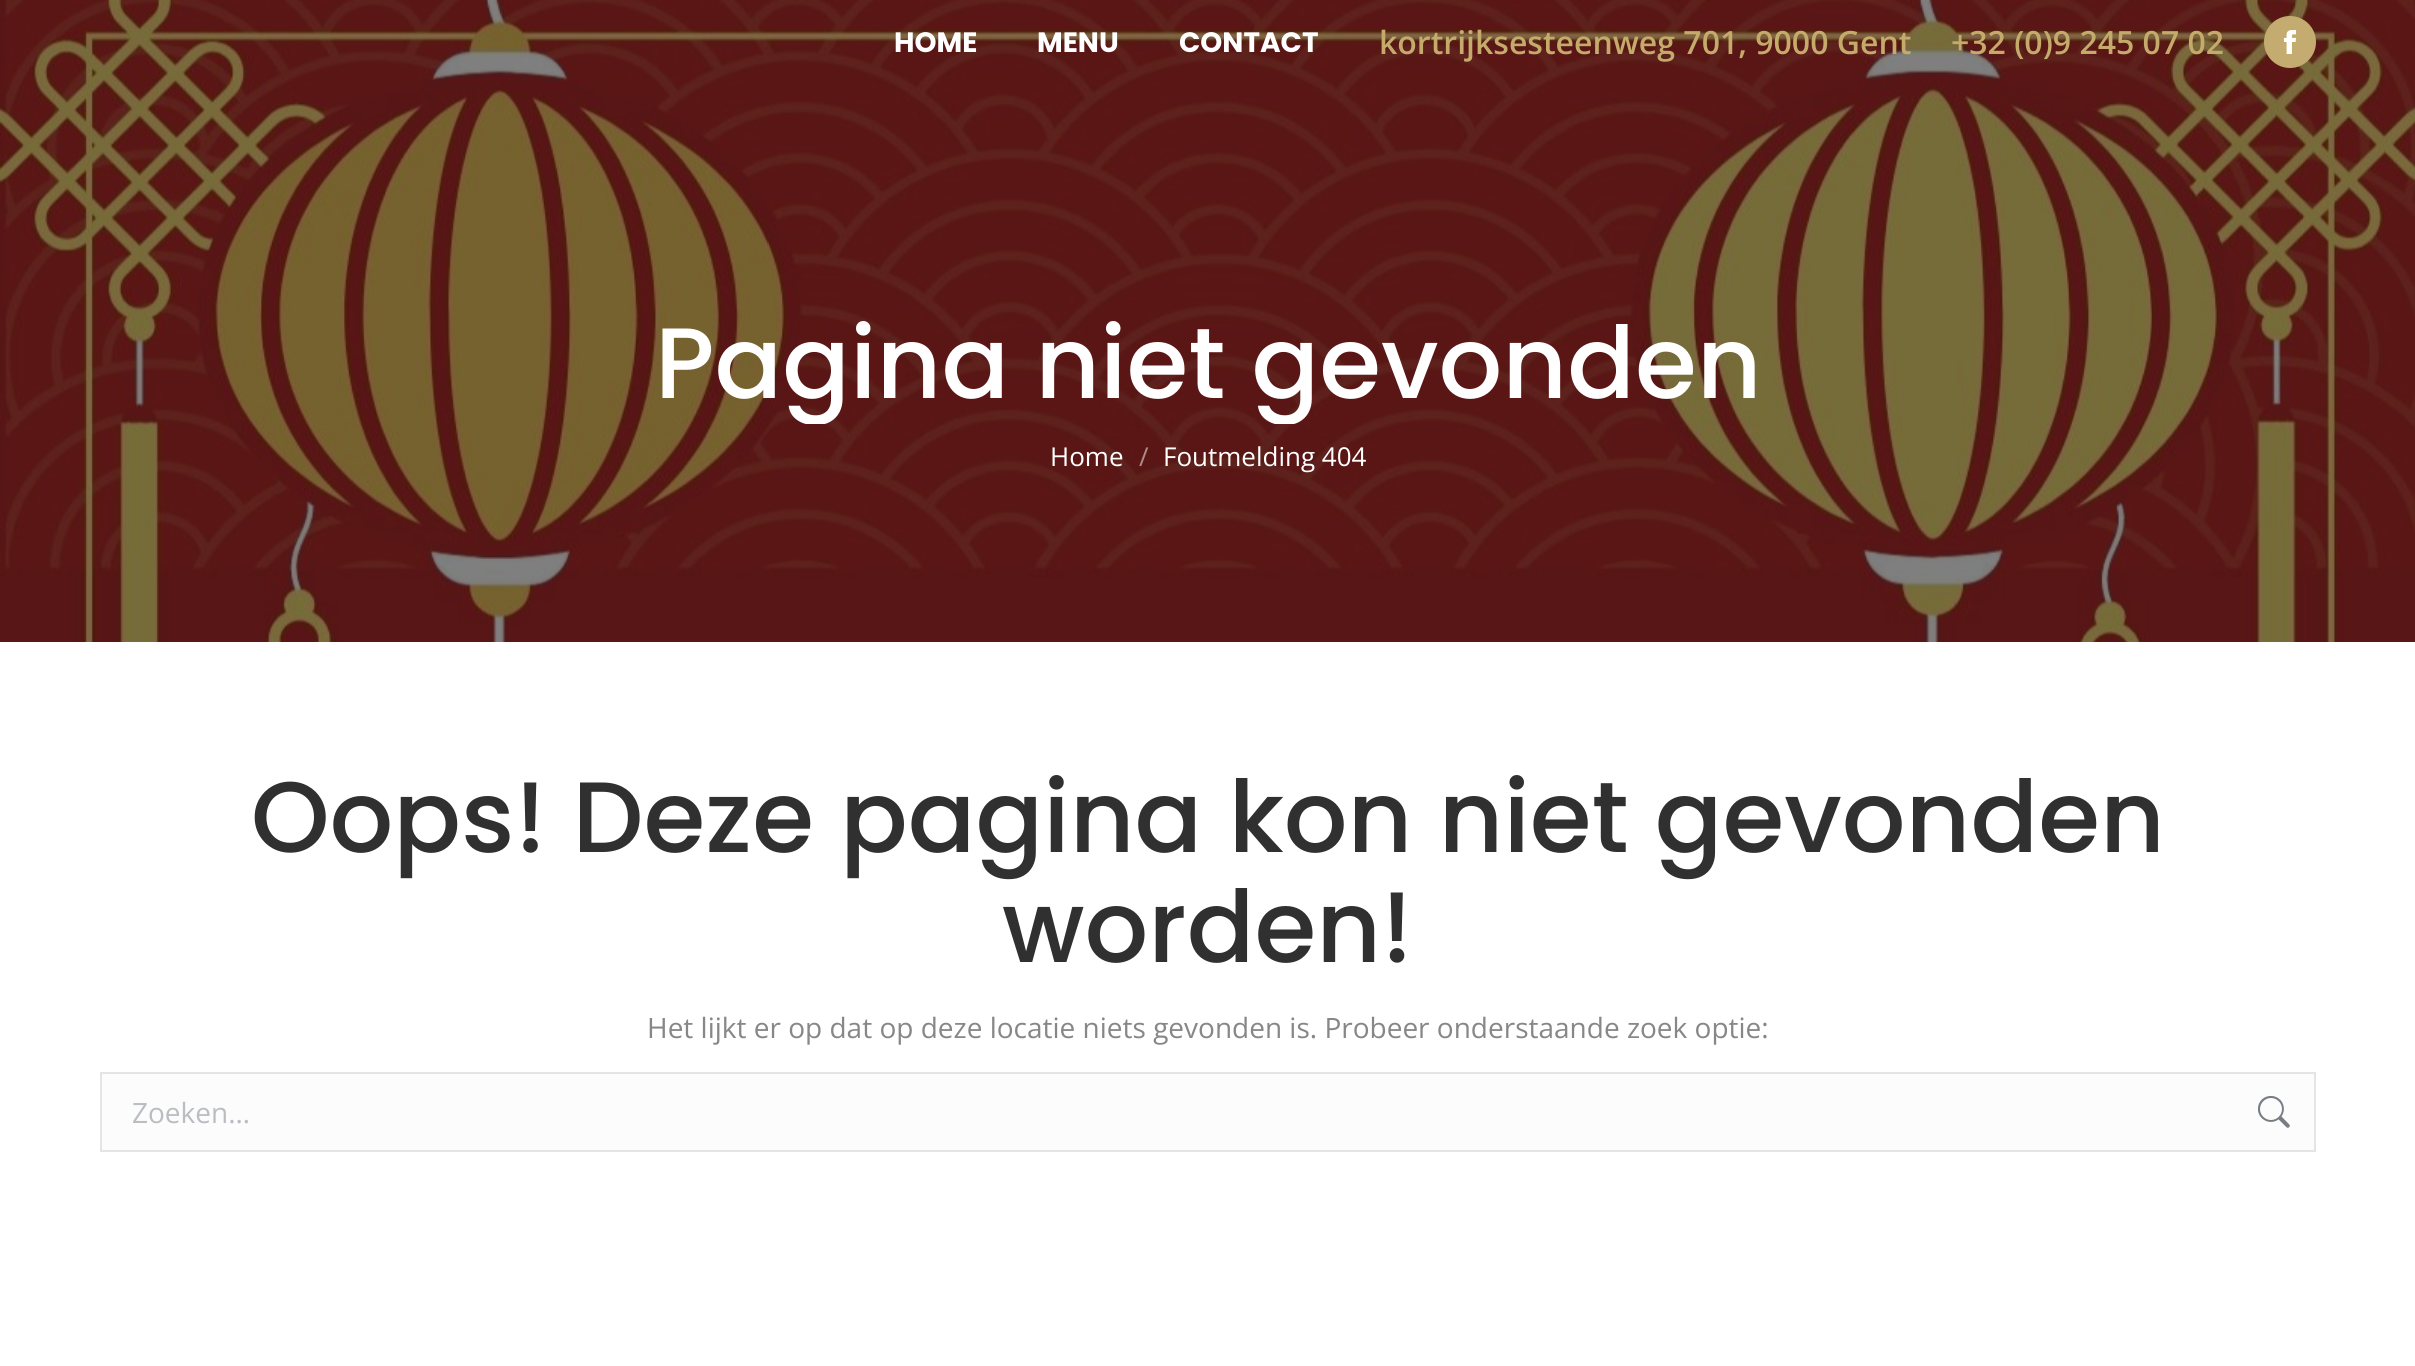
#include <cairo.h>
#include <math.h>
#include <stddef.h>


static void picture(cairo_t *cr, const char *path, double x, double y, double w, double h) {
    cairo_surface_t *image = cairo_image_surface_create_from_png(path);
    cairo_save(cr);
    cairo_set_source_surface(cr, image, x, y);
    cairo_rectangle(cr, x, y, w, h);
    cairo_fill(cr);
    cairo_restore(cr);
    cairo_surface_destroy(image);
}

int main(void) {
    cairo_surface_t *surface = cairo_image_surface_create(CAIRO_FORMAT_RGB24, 2415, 1366);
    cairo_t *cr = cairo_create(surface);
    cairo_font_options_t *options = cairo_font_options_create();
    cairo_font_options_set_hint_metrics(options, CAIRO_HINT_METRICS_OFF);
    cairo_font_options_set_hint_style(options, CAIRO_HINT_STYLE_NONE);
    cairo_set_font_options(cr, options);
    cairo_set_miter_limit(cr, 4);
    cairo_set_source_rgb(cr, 1, 1, 1);
    cairo_paint(cr);
    picture(cr, "img2.png", 0, 0, 2415, 642);
    cairo_select_font_face(cr, "Poppins", CAIRO_FONT_SLANT_NORMAL, CAIRO_FONT_WEIGHT_BOLD);
    cairo_set_font_size(cr, 28);
    cairo_set_source_rgb(cr, 1, 1, 1);
    cairo_move_to(cr, 894, 52);
    cairo_show_text(cr, "HOME");
    cairo_move_to(cr, 1037, 52);
    cairo_show_text(cr, "MENU");
    cairo_move_to(cr, 1179, 52);
    cairo_show_text(cr, "CONTACT");
    cairo_select_font_face(cr, "Open Sans SemiBold", CAIRO_FONT_SLANT_NORMAL, CAIRO_FONT_WEIGHT_NORMAL);
    cairo_set_font_size(cr, 32);
    cairo_set_source_rgb(cr, 0.773, 0.671, 0.42);
    cairo_move_to(cr, 1379, 54);
    cairo_show_text(cr, "kortrijksesteenweg 701, 9000 Gent");
    cairo_move_to(cr, 1951, 54);
    cairo_show_text(cr, "+32 (0)9 245 07 02");
    cairo_set_source_rgb(cr, 0.769, 0.675, 0.439);
    cairo_new_path(cr);
    cairo_arc(cr, 2290, 42, 26, 0, 2 * M_PI);
    cairo_fill(cr);
    picture(cr, "img1.png", 2283, 30, 14, 24);
    cairo_save(cr);
    cairo_rectangle(cr, 654, 304, 1108, 120);
    cairo_clip(cr);
    cairo_select_font_face(cr, "Poppins Medium", CAIRO_FONT_SLANT_NORMAL, CAIRO_FONT_WEIGHT_NORMAL);
    cairo_set_font_size(cr, 100);
    cairo_set_source_rgb(cr, 1, 1, 1);
    cairo_move_to(cr, 655, 398);
    cairo_show_text(cr, "Pagina niet gevonden");
    cairo_restore(cr);
    cairo_select_font_face(cr, "Open Sans", CAIRO_FONT_SLANT_NORMAL, CAIRO_FONT_WEIGHT_NORMAL);
    cairo_set_font_size(cr, 26);
    cairo_set_source_rgb(cr, 1, 1, 1);
    cairo_move_to(cr, 1050, 466);
    cairo_show_text(cr, "Home");
    cairo_set_source_rgb(cr, 0.678, 0.545, 0.541);
    cairo_move_to(cr, 1139, 466);
    cairo_show_text(cr, "/");
    cairo_set_source_rgb(cr, 1, 1, 1);
    cairo_move_to(cr, 1163, 466);
    cairo_show_text(cr, "Foutmelding 404");
    cairo_select_font_face(cr, "Poppins Medium", CAIRO_FONT_SLANT_NORMAL, CAIRO_FONT_WEIGHT_NORMAL);
    cairo_set_font_size(cr, 100);
    cairo_set_source_rgb(cr, 0.188, 0.188, 0.188);
    cairo_move_to(cr, 251, 852);
    cairo_show_text(cr, "Oops! Deze pagina kon niet gevonden");
    cairo_move_to(cr, 1002, 962);
    cairo_show_text(cr, "worden!");
    cairo_select_font_face(cr, "Open Sans", CAIRO_FONT_SLANT_NORMAL, CAIRO_FONT_WEIGHT_NORMAL);
    cairo_set_font_size(cr, 28);
    cairo_set_source_rgb(cr, 0.529, 0.529, 0.529);
    cairo_move_to(cr, 647, 1038);
    cairo_show_text(cr, "Het lijkt er op dat op deze locatie niets gevonden is. Probeer onderstaande zoek optie:");
    cairo_set_source_rgb(cr, 0.988, 0.988, 0.988);
    cairo_rectangle(cr, 101, 1073, 2214, 78);
    cairo_fill_preserve(cr);
    cairo_set_source_rgb(cr, 0.894, 0.898, 0.906);
    cairo_stroke(cr);
    cairo_set_source_rgb(cr, 0.729, 0.741, 0.757);
    cairo_move_to(cr, 132, 1123);
    cairo_show_text(cr, "Zoeken…");
    picture(cr, "img3.png", 2258, 1096, 32, 32);
    cairo_surface_write_to_png(surface, "page.png");
    cairo_font_options_destroy(options);
    cairo_destroy(cr);
    cairo_surface_destroy(surface);
    return 0;
}
